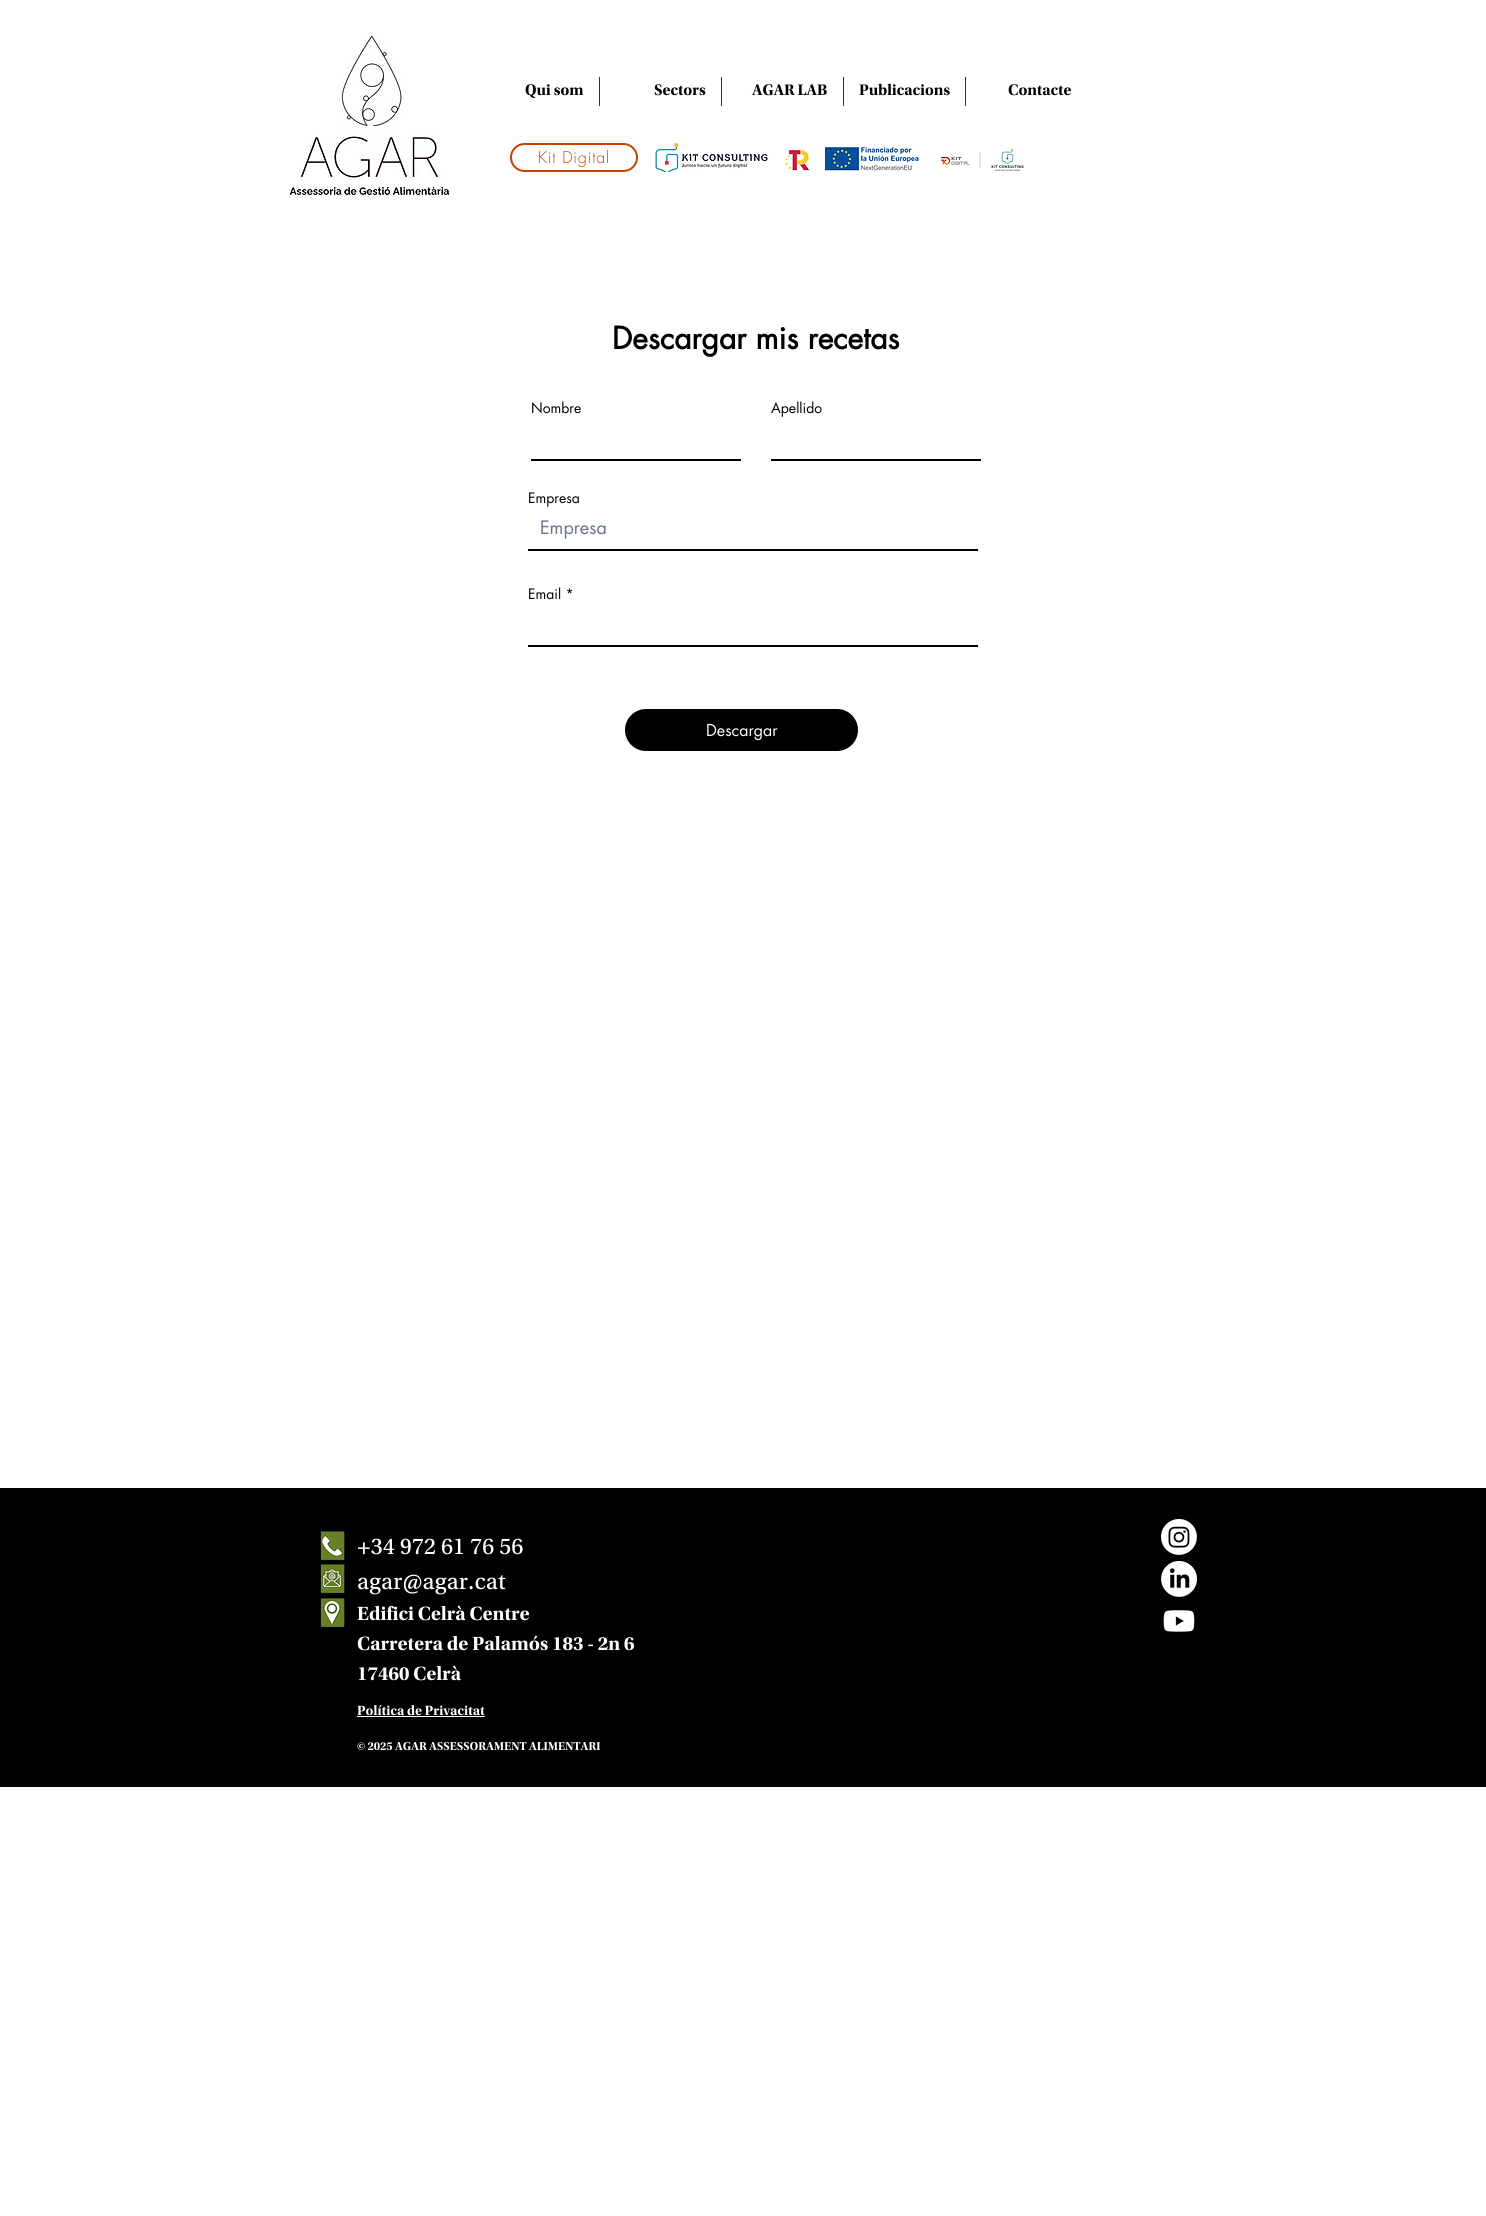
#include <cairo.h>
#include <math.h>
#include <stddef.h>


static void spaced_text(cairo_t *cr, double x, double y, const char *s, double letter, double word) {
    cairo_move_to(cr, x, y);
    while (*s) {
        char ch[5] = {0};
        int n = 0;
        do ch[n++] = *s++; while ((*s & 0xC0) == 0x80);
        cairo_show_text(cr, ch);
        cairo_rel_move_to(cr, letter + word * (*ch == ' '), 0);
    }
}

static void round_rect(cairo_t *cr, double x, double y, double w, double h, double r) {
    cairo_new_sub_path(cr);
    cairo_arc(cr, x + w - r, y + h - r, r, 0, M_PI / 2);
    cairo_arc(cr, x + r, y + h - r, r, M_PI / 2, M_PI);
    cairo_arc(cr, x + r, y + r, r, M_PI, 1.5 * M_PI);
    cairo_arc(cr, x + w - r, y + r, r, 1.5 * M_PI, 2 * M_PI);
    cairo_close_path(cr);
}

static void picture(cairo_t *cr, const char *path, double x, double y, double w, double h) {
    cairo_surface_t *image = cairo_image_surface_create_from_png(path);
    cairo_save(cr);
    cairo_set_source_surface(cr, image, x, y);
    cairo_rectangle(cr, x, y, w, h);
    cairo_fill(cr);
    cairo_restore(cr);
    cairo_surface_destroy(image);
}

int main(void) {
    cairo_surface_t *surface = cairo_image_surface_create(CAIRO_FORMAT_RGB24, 1486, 2216);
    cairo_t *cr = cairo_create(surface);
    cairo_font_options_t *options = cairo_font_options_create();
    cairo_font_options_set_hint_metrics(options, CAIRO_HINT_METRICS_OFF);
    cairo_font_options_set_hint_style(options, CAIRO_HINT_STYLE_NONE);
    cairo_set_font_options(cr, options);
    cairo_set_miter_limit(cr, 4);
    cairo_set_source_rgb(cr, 1, 1, 1);
    cairo_paint(cr);
    picture(cr, "img1.png", 289, 35, 160, 162);
    picture(cr, "img2.png", 525, 84, 59, 14);
    cairo_set_source_rgb(cr, 0.047, 0.235, 0.376);
    cairo_rectangle(cr, 599, 77, 1, 29);
    cairo_fill(cr);
    picture(cr, "img3.png", 654, 84, 52, 12);
    cairo_rectangle(cr, 721, 77, 1, 29);
    cairo_fill(cr);
    picture(cr, "img4.png", 751, 84, 76, 12);
    cairo_rectangle(cr, 843, 77, 1, 29);
    cairo_fill(cr);
    picture(cr, "img5.png", 859, 83, 91, 13);
    cairo_rectangle(cr, 965, 77, 1, 29);
    cairo_fill(cr);
    picture(cr, "img6.png", 1008, 84, 63, 12);
    round_rect(cr, 511, 144, 126, 27, 13.5);
    cairo_set_source_rgb(cr, 0.78, 0.263, 0);
    cairo_stroke(cr);
    cairo_select_font_face(cr, "futura Light", CAIRO_FONT_SLANT_NORMAL, CAIRO_FONT_WEIGHT_NORMAL);
    cairo_set_font_size(cr, 16);
    spaced_text(cr, 538, 163, "Kit Digital", 0.75, 0);
    picture(cr, "img7.png", 655, 143, 264, 29);
    picture(cr, "img8.png", 941, 148, 83, 23);
    cairo_select_font_face(cr, "futura", CAIRO_FONT_SLANT_NORMAL, CAIRO_FONT_WEIGHT_BOLD);
    cairo_set_font_size(cr, 30);
    cairo_set_source_rgb(cr, 0, 0, 0);
    cairo_move_to(cr, 612, 349);
    cairo_show_text(cr, "Descargar mis recetas");
    cairo_select_font_face(cr, "futura", CAIRO_FONT_SLANT_NORMAL, CAIRO_FONT_WEIGHT_NORMAL);
    cairo_set_font_size(cr, 14);
    cairo_move_to(cr, 531, 413);
    cairo_show_text(cr, "Nombre");
    cairo_rectangle(cr, 531, 459, 210, 2);
    cairo_fill(cr);
    cairo_move_to(cr, 771, 413);
    cairo_show_text(cr, "Apellido");
    cairo_rectangle(cr, 771, 459, 210, 2);
    cairo_fill(cr);
    cairo_move_to(cr, 528, 503);
    cairo_show_text(cr, "Empresa");
    cairo_rectangle(cr, 528, 549, 450, 2);
    cairo_fill(cr);
    cairo_set_font_size(cr, 18);
    cairo_set_source_rgb(cr, 0.408, 0.451, 0.576);
    cairo_move_to(cr, 540, 534);
    cairo_show_text(cr, "Empresa");
    cairo_set_font_size(cr, 14);
    cairo_set_source_rgb(cr, 0, 0, 0);
    cairo_move_to(cr, 528, 599);
    cairo_show_text(cr, "Email *");
    cairo_rectangle(cr, 528, 645, 450, 2);
    cairo_fill(cr);
    round_rect(cr, 626, 710, 231, 40, 20);
    cairo_fill_preserve(cr);
    cairo_stroke(cr);
    cairo_set_font_size(cr, 16);
    cairo_set_source_rgb(cr, 1, 1, 1);
    cairo_move_to(cr, 706, 736);
    cairo_show_text(cr, "Descargar");
    cairo_set_source_rgb(cr, 0, 0, 0);
    cairo_rectangle(cr, 0, 1488, 1486, 299);
    cairo_fill(cr);
    picture(cr, "img9.png", 320, 1531, 25, 30);
    picture(cr, "img10.png", 358, 1538, 165, 17);
    picture(cr, "img11.png", 358, 1577, 11, 13);
    picture(cr, "img12.png", 369, 1574, 137, 21);
    picture(cr, "img13.png", 357, 1605, 172, 16);
    picture(cr, "img14.png", 357, 1635, 277, 16);
    picture(cr, "img15.png", 358, 1665, 103, 16);
    picture(cr, "img16.png", 1161, 1519, 36, 36);
    picture(cr, "img17.png", 1161, 1561, 36, 36);
    picture(cr, "img18.png", 1163, 1610, 32, 22);
    picture(cr, "img19.png", 320, 1564, 25, 30);
    picture(cr, "img20.png", 320, 1598, 25, 30);
    picture(cr, "img21.png", 357, 1705, 128, 11);
    cairo_set_source_rgb(cr, 1, 1, 1);
    cairo_rectangle(cr, 357, 1716, 128, 1);
    cairo_fill(cr);
    picture(cr, "img22.png", 357, 1741, 244, 10);
    cairo_surface_write_to_png(surface, "page.png");
    cairo_font_options_destroy(options);
    cairo_destroy(cr);
    cairo_surface_destroy(surface);
    return 0;
}
